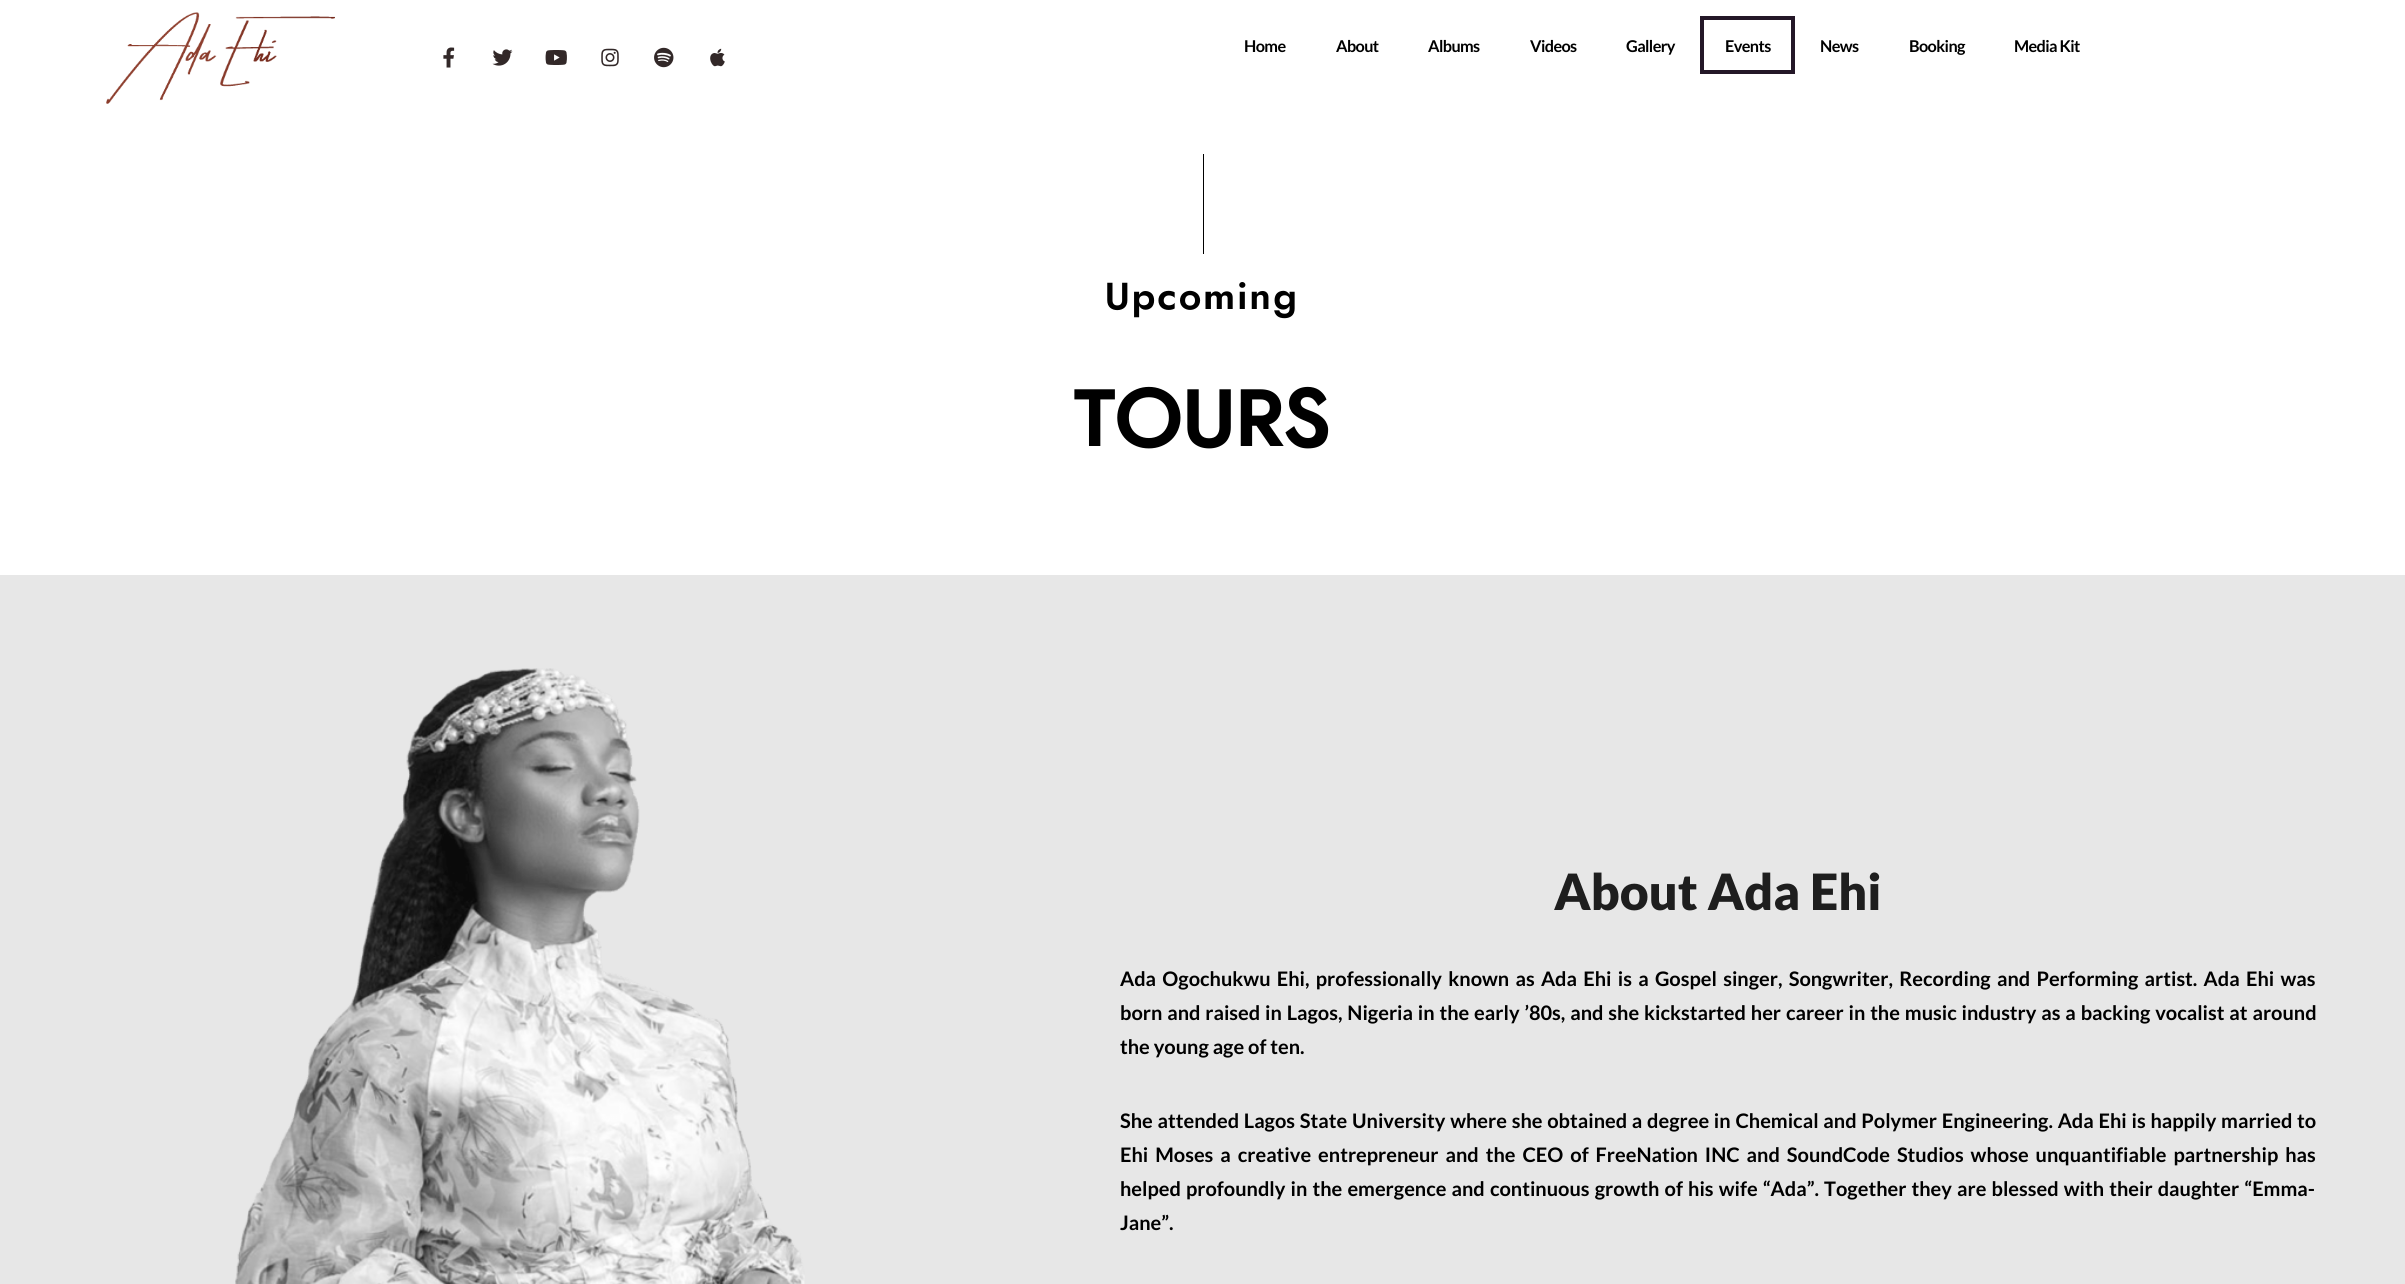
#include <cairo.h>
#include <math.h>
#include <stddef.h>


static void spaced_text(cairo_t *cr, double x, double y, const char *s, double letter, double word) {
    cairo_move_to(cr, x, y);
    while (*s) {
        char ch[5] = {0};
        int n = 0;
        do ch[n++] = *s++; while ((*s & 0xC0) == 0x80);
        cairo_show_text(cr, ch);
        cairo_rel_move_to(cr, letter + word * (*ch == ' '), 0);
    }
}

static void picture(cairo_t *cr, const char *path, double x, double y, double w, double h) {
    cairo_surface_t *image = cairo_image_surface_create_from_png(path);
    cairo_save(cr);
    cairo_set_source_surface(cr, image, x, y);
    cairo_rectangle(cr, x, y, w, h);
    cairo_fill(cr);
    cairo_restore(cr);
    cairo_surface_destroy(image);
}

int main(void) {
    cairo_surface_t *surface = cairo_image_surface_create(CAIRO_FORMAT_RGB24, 2405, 1284);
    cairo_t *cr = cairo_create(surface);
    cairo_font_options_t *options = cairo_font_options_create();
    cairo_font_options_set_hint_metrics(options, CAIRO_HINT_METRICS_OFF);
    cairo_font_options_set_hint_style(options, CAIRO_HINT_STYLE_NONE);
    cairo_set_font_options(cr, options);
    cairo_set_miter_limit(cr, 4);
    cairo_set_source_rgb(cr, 1, 1, 1);
    cairo_paint(cr);
    picture(cr, "img1.png", 106, 12, 229, 92);
    picture(cr, "img2.png", 443, 47, 12, 21);
    picture(cr, "img3.png", 492, 49, 21, 17);
    picture(cr, "img4.png", 545, 50, 22, 15);
    picture(cr, "img5.png", 601, 48, 18, 19);
    picture(cr, "img6.png", 654, 47, 20, 21);
    picture(cr, "img7.png", 710, 48, 15, 19);
    cairo_select_font_face(cr, "Lato", CAIRO_FONT_SLANT_NORMAL, CAIRO_FONT_WEIGHT_BOLD);
    cairo_set_font_size(cr, 16.25);
    cairo_set_source_rgb(cr, 0, 0, 0);
    spaced_text(cr, 1244, 52, "Home", -0.6, 0);
    spaced_text(cr, 1336, 52, "About", -0.6, 0);
    spaced_text(cr, 1428, 52, "Albums", -0.6, 0);
    spaced_text(cr, 1530, 52, "Videos", -0.6, 0);
    spaced_text(cr, 1626, 52, "Gallery", -0.6, 0);
    cairo_set_source_rgb(cr, 0.141, 0.09, 0.153);
    cairo_rectangle(cr, 1700, 70, 95, 4);
    cairo_fill(cr);
    cairo_rectangle(cr, 1700, 16, 4, 58);
    cairo_fill(cr);
    cairo_rectangle(cr, 1700, 16, 95, 4);
    cairo_fill(cr);
    cairo_rectangle(cr, 1791, 16, 4, 58);
    cairo_fill(cr);
    cairo_set_source_rgb(cr, 0, 0, 0);
    spaced_text(cr, 1725, 52, "Events", -0.6, 0);
    spaced_text(cr, 1820, 52, "News", -0.6, 0);
    spaced_text(cr, 1909, 52, "Booking", -0.6, 0);
    spaced_text(cr, 2014, 52, "Media Kit", -0.6, 0);
    cairo_rectangle(cr, 1203, 154, 1, 100);
    cairo_fill(cr);
    cairo_select_font_face(cr, "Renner", CAIRO_FONT_SLANT_NORMAL, CAIRO_FONT_WEIGHT_BOLD);
    cairo_set_font_size(cr, 37.5);
    spaced_text(cr, 1105, 309, "Upcoming", 2.5, 0);
    cairo_set_font_size(cr, 81);
    cairo_move_to(cr, 1074, 446);
    cairo_show_text(cr, "TOURS");
    cairo_set_source_rgb(cr, 0.906, 0.906, 0.906);
    cairo_rectangle(cr, 0, 575, 2405, 709);
    cairo_fill(cr);
    picture(cr, "img8.png", 235, 668, 570, 616);
    cairo_select_font_face(cr, "Lato Black", CAIRO_FONT_SLANT_NORMAL, CAIRO_FONT_WEIGHT_NORMAL);
    cairo_set_font_size(cr, 50);
    cairo_set_source_rgb(cr, 0.118, 0.118, 0.118);
    cairo_move_to(cr, 1554, 910);
    cairo_show_text(cr, "About Ada Ehi");
    cairo_select_font_face(cr, "Lato", CAIRO_FONT_SLANT_NORMAL, CAIRO_FONT_WEIGHT_BOLD);
    cairo_set_font_size(cr, 20);
    cairo_set_source_rgb(cr, 0, 0, 0);
    spaced_text(cr, 1120, 986, "Ada Ogochukwu Ehi, professionally known as Ada Ehi is a Gospel singer, Songwriter, Recording and Performing artist. Ada Ehi was", 0, 2.4);
    spaced_text(cr, 1120, 1020, "born and raised in Lagos, Nigeria in the early ’80s, and she kickstarted her career in the music industry as a backing vocalist at around", 0, 1);
    cairo_move_to(cr, 1120, 1054);
    cairo_show_text(cr, "the young age of ten.");
    spaced_text(cr, 1120, 1128, "She attended Lagos State University where she obtained a degree in Chemical and Polymer Engineering. Ada Ehi is happily married to", 0, 0.9);
    spaced_text(cr, 1120, 1162, "Ehi Moses a creative entrepreneur and the CEO of FreeNation INC and SoundCode Studios whose unquantifiable partnership has", 0, 3.1);
    spaced_text(cr, 1120, 1196, "helped profoundly in the emergence and continuous growth of his wife “Ada”. Together they are blessed with their daughter “Emma-", 0, 1.25);
    cairo_move_to(cr, 1120, 1230);
    cairo_show_text(cr, "Jane”.");
    cairo_surface_write_to_png(surface, "page.png");
    cairo_font_options_destroy(options);
    cairo_destroy(cr);
    cairo_surface_destroy(surface);
    return 0;
}
